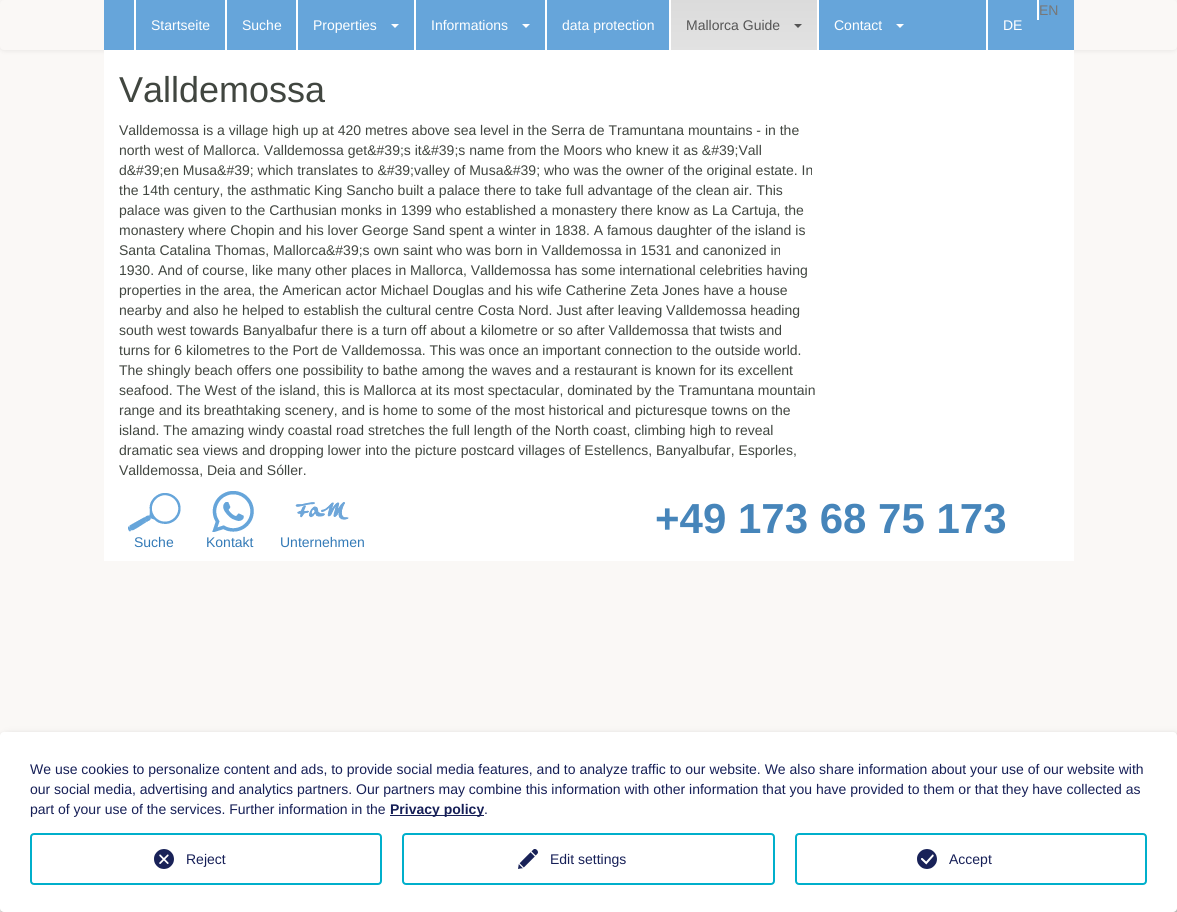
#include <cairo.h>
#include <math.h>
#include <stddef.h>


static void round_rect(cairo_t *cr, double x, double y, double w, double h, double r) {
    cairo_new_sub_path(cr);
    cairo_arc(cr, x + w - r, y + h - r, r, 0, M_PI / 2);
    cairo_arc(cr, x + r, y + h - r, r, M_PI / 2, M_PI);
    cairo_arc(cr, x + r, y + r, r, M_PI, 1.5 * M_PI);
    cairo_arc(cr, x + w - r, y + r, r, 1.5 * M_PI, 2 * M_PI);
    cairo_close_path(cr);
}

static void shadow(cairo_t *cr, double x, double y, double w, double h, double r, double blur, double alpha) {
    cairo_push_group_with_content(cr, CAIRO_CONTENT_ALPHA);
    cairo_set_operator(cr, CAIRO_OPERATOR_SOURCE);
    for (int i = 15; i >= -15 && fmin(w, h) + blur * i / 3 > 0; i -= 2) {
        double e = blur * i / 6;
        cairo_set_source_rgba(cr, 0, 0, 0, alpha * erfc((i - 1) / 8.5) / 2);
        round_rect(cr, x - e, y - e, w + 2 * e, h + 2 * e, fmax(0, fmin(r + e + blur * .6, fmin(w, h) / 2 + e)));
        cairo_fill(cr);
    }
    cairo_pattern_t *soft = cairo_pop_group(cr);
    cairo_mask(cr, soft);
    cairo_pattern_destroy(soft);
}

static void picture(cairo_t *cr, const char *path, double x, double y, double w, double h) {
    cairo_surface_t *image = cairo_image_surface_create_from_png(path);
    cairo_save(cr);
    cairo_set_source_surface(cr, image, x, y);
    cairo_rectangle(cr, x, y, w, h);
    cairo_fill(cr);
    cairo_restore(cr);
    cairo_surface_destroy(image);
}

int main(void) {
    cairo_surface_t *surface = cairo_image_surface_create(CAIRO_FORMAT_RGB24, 1177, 912);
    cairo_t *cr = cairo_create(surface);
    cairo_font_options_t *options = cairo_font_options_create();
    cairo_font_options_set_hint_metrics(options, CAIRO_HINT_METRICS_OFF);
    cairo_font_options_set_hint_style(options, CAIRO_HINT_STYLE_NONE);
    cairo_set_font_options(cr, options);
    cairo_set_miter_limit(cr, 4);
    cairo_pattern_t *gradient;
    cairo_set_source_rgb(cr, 0.98, 0.969, 0.961);
    cairo_paint(cr);
    cairo_set_source_rgb(cr, 0, 0, 0);
    shadow(cr, 0, 1, 1177, 50, 4, 2.5, 0.07);
    cairo_set_source_rgb(cr, 0.98, 0.969, 0.961);
    round_rect(cr, 0, 0, 1177, 50, 4);
    cairo_fill(cr);
    cairo_set_source_rgb(cr, 0.4, 0.647, 0.855);
    cairo_rectangle(cr, 104, 0, 970, 50);
    cairo_fill(cr);
    cairo_set_source_rgb(cr, 1, 1, 1);
    cairo_rectangle(cr, 134, 0, 2, 50);
    cairo_fill(cr);
    cairo_select_font_face(cr, "Liberation Sans", CAIRO_FONT_SLANT_NORMAL, CAIRO_FONT_WEIGHT_NORMAL);
    cairo_set_font_size(cr, 14);
    cairo_move_to(cr, 151, 30);
    cairo_show_text(cr, "Startseite");
    cairo_rectangle(cr, 225, 0, 2, 50);
    cairo_fill(cr);
    cairo_move_to(cr, 242, 30);
    cairo_show_text(cr, "Suche");
    cairo_rectangle(cr, 296, 0, 2, 50);
    cairo_fill(cr);
    cairo_move_to(cr, 313, 30);
    cairo_show_text(cr, "Properties");
    cairo_new_path(cr);
    cairo_move_to(cr, 391, 24);
    cairo_line_to(cr, 399, 24);
    cairo_line_to(cr, 395, 28);
    cairo_close_path(cr);
    cairo_fill(cr);
    cairo_rectangle(cr, 414, 0, 2, 50);
    cairo_fill(cr);
    cairo_move_to(cr, 431, 30);
    cairo_show_text(cr, "Informations");
    cairo_new_path(cr);
    cairo_move_to(cr, 522, 24);
    cairo_line_to(cr, 530, 24);
    cairo_line_to(cr, 526, 28);
    cairo_close_path(cr);
    cairo_fill(cr);
    cairo_rectangle(cr, 545, 0, 2, 50);
    cairo_fill(cr);
    cairo_move_to(cr, 562, 30);
    cairo_show_text(cr, "data protection");
    cairo_rectangle(cr, 669, 0, 2, 50);
    cairo_fill(cr);
    gradient = cairo_pattern_create_linear(744, 0, 744, 50);
    cairo_pattern_add_color_stop_rgba(gradient, 0, 0.859, 0.859, 0.859, 1);
    cairo_pattern_add_color_stop_rgba(gradient, 1, 0.886, 0.886, 0.886, 1);
    cairo_set_source(cr, gradient);
    cairo_pattern_destroy(gradient);
    cairo_rectangle(cr, 671, 0, 146, 50);
    cairo_fill(cr);
    cairo_set_source_rgb(cr, 0.333, 0.333, 0.333);
    cairo_move_to(cr, 686, 30);
    cairo_show_text(cr, "Mallorca Guide");
    cairo_new_path(cr);
    cairo_move_to(cr, 794, 24);
    cairo_line_to(cr, 802, 24);
    cairo_line_to(cr, 798, 28);
    cairo_close_path(cr);
    cairo_fill(cr);
    cairo_set_source_rgb(cr, 1, 1, 1);
    cairo_rectangle(cr, 817, 0, 2, 50);
    cairo_fill(cr);
    cairo_move_to(cr, 834, 30);
    cairo_show_text(cr, "Contact");
    cairo_new_path(cr);
    cairo_move_to(cr, 896, 24);
    cairo_line_to(cr, 904, 24);
    cairo_line_to(cr, 900, 28);
    cairo_close_path(cr);
    cairo_fill(cr);
    cairo_rectangle(cr, 1037, 0, 2, 20);
    cairo_fill(cr);
    cairo_set_source_rgb(cr, 0.467, 0.467, 0.467);
    cairo_move_to(cr, 1039, 15);
    cairo_show_text(cr, "EN");
    cairo_set_source_rgb(cr, 1, 1, 1);
    cairo_rectangle(cr, 986, 0, 2, 50);
    cairo_fill(cr);
    cairo_move_to(cr, 1003, 30);
    cairo_show_text(cr, "DE");
    cairo_rectangle(cr, 104, 50, 970, 511);
    cairo_fill(cr);
    cairo_set_font_size(cr, 36);
    cairo_set_source_rgb(cr, 0.255, 0.275, 0.251);
    cairo_move_to(cr, 119, 102);
    cairo_show_text(cr, "Valldemossa");
    cairo_set_font_size(cr, 14);
    cairo_move_to(cr, 119, 135);
    cairo_show_text(cr, "Valldemossa is a village high up at 420 metres above sea level in the Serra de Tramuntana mountains - in the");
    cairo_move_to(cr, 119, 155);
    cairo_show_text(cr, "north west of Mallorca. Valldemossa get&#39;s it&#39;s name from the Moors who knew it as &#39;Vall");
    cairo_move_to(cr, 119, 175);
    cairo_show_text(cr, "d&#39;en Musa&#39; which translates to &#39;valley of Musa&#39; who was the owner of the original estate. In");
    cairo_move_to(cr, 119, 195);
    cairo_show_text(cr, "the 14th century, the asthmatic King Sancho built a palace there to take full advantage of the clean air. This");
    cairo_move_to(cr, 119, 215);
    cairo_show_text(cr, "palace was given to the Carthusian monks in 1399 who established a monastery there know as La Cartuja, the");
    cairo_move_to(cr, 119, 235);
    cairo_show_text(cr, "monastery where Chopin and his lover George Sand spent a winter in 1838. A famous daughter of the island is");
    cairo_move_to(cr, 119, 255);
    cairo_show_text(cr, "Santa Catalina Thomas, Mallorca&#39;s own saint who was born in Valldemossa in 1531 and canonized in");
    cairo_move_to(cr, 119, 275);
    cairo_show_text(cr, "1930. And of course, like many other places in Mallorca, Valldemossa has some international celebrities having");
    cairo_move_to(cr, 119, 295);
    cairo_show_text(cr, "properties in the area, the American actor Michael Douglas and his wife Catherine Zeta Jones have a house");
    cairo_move_to(cr, 119, 315);
    cairo_show_text(cr, "nearby and also he helped to establish the cultural centre Costa Nord. Just after leaving Valldemossa heading");
    cairo_move_to(cr, 119, 335);
    cairo_show_text(cr, "south west towards Banyalbafur there is a turn off about a kilometre or so after Valldemossa that twists and");
    cairo_move_to(cr, 119, 355);
    cairo_show_text(cr, "turns for 6 kilometres to the Port de Valldemossa. This was once an important connection to the outside world.");
    cairo_move_to(cr, 119, 375);
    cairo_show_text(cr, "The shingly beach offers one possibility to bathe among the waves and a restaurant is known for its excellent");
    cairo_move_to(cr, 119, 395);
    cairo_show_text(cr, "seafood. The West of the island, this is Mallorca at its most spectacular, dominated by the Tramuntana mountain");
    cairo_move_to(cr, 119, 415);
    cairo_show_text(cr, "range and its breathtaking scenery, and is home to some of the most historical and picturesque towns on the");
    cairo_move_to(cr, 119, 435);
    cairo_show_text(cr, "island. The amazing windy coastal road stretches the full length of the North coast, climbing high to reveal");
    cairo_move_to(cr, 119, 455);
    cairo_show_text(cr, "dramatic sea views and dropping lower into the picture postcard villages of Estellencs, Banyalbufar, Esporles,");
    cairo_move_to(cr, 119, 475);
    cairo_show_text(cr, "Valldemossa, Deia and Sóller.");
    cairo_select_font_face(cr, "Liberation Sans", CAIRO_FONT_SLANT_NORMAL, CAIRO_FONT_WEIGHT_BOLD);
    cairo_set_font_size(cr, 42);
    cairo_set_source_rgb(cr, 0.275, 0.522, 0.729);
    cairo_move_to(cr, 655, 533);
    cairo_show_text(cr, "+49 173 68 75 173");
    picture(cr, "img1.png", 128, 493, 53, 39);
    cairo_select_font_face(cr, "Liberation Sans", CAIRO_FONT_SLANT_NORMAL, CAIRO_FONT_WEIGHT_NORMAL);
    cairo_set_font_size(cr, 14);
    cairo_set_source_rgb(cr, 0.2, 0.478, 0.718);
    cairo_move_to(cr, 134, 547);
    cairo_show_text(cr, "Suche");
    picture(cr, "img2.png", 212, 491, 42, 41);
    cairo_move_to(cr, 206, 547);
    cairo_show_text(cr, "Kontakt");
    picture(cr, "img3.png", 295, 502, 54, 18);
    cairo_move_to(cr, 280, 547);
    cairo_show_text(cr, "Unternehmen");
    cairo_set_source_rgb(cr, 0, 0, 0);
    shadow(cr, 5, 737, 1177, 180, 4, 5, 0.19);
    shadow(cr, 0, 736, 1177, 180, 4, 3, 0.2);
    cairo_set_source_rgb(cr, 1, 1, 1);
    round_rect(cr, 0, 732, 1177, 180, 4);
    cairo_fill(cr);
    cairo_set_source_rgb(cr, 0.086, 0.122, 0.341);
    cairo_move_to(cr, 30, 774);
    cairo_show_text(cr, "We use cookies to personalize content and ads, to provide social media features, and to analyze traffic to our website. We also share information about your use of our website with");
    cairo_move_to(cr, 30, 794);
    cairo_show_text(cr, "our social media, advertising and analytics partners. Our partners may combine this information with other information that you have provided to them or that they have collected as");
    cairo_move_to(cr, 30, 814);
    cairo_show_text(cr, "part of your use of the services. Further information in the");
    cairo_rectangle(cr, 390, 815, 94, 1);
    cairo_fill(cr);
    cairo_select_font_face(cr, "Liberation Sans", CAIRO_FONT_SLANT_NORMAL, CAIRO_FONT_WEIGHT_BOLD);
    cairo_move_to(cr, 390, 814);
    cairo_show_text(cr, "Privacy policy");
    cairo_select_font_face(cr, "Liberation Sans", CAIRO_FONT_SLANT_NORMAL, CAIRO_FONT_WEIGHT_NORMAL);
    cairo_move_to(cr, 484, 814);
    cairo_show_text(cr, ".");
    round_rect(cr, 31, 834, 350, 50, 3);
    cairo_set_source_rgb(cr, 0, 0.686, 0.796);
    cairo_stroke(cr);
    picture(cr, "img4.png", 154, 849, 20, 20);
    cairo_set_source_rgb(cr, 0.086, 0.122, 0.341);
    cairo_move_to(cr, 186, 864);
    cairo_show_text(cr, "Reject");
    round_rect(cr, 796, 834, 350, 50, 3);
    cairo_set_source_rgb(cr, 0, 0.686, 0.796);
    cairo_stroke(cr);
    picture(cr, "img5.png", 917, 849, 20, 20);
    cairo_set_source_rgb(cr, 0.086, 0.122, 0.341);
    cairo_move_to(cr, 949, 864);
    cairo_show_text(cr, "Accept");
    round_rect(cr, 403, 834, 371, 50, 3);
    cairo_set_source_rgb(cr, 0, 0.686, 0.796);
    cairo_stroke(cr);
    picture(cr, "img6.png", 518, 849, 20, 20);
    cairo_set_source_rgb(cr, 0.086, 0.122, 0.341);
    cairo_move_to(cr, 550, 864);
    cairo_show_text(cr, "Edit settings");
    cairo_surface_write_to_png(surface, "page.png");
    cairo_font_options_destroy(options);
    cairo_destroy(cr);
    cairo_surface_destroy(surface);
    return 0;
}
